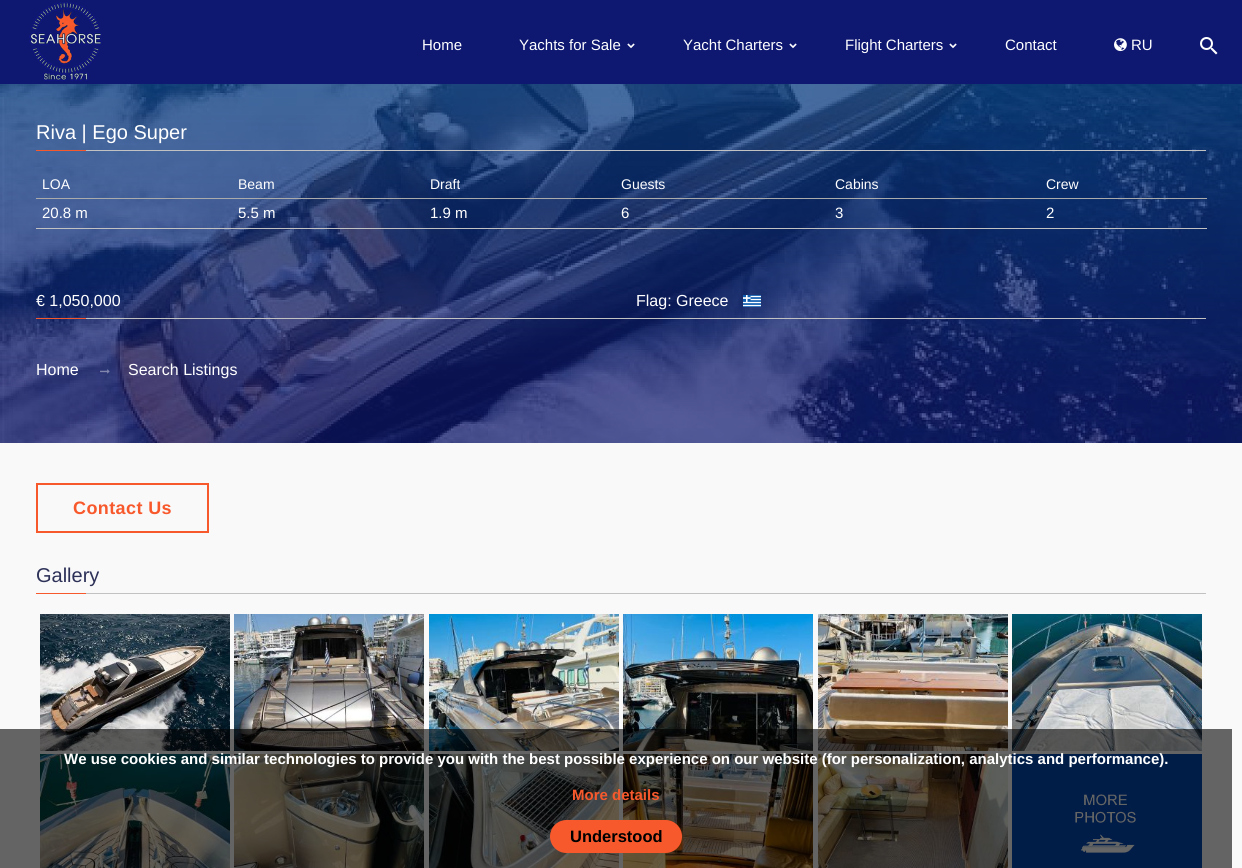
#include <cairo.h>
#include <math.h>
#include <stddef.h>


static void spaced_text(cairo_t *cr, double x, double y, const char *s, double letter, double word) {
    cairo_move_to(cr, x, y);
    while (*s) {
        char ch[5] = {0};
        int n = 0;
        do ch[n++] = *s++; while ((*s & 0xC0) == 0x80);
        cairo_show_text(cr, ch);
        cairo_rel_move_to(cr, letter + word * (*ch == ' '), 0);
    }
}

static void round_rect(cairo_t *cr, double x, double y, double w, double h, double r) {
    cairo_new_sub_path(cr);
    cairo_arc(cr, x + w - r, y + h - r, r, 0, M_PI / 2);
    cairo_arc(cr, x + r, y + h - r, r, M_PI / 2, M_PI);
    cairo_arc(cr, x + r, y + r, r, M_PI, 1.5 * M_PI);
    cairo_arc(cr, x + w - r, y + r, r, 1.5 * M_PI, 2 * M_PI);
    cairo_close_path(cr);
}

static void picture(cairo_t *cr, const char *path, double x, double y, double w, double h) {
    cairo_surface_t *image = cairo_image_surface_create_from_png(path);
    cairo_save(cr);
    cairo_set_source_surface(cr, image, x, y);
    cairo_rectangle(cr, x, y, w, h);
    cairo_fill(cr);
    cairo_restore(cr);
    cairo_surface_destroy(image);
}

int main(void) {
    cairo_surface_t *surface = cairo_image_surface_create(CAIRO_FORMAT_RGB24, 1242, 868);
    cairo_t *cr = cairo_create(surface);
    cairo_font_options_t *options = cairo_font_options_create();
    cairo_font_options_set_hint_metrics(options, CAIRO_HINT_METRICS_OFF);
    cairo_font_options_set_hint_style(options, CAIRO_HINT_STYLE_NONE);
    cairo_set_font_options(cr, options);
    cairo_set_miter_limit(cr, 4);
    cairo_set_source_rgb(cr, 0.973, 0.973, 0.973);
    cairo_paint(cr);
    cairo_set_source_rgb(cr, 0.055, 0.094, 0.443);
    cairo_rectangle(cr, 0, 0, 1242, 84);
    cairo_fill(cr);
    picture(cr, "img1.png", 29, 2, 73, 79);
    cairo_select_font_face(cr, "Liberation Sans", CAIRO_FONT_SLANT_NORMAL, CAIRO_FONT_WEIGHT_NORMAL);
    cairo_set_font_size(cr, 15);
    cairo_set_source_rgb(cr, 1, 1, 1);
    cairo_move_to(cr, 422, 50);
    cairo_show_text(cr, "Home");
    cairo_move_to(cr, 519, 50);
    cairo_show_text(cr, "Yachts for Sale");
    picture(cr, "img2.png", 627, 43, 8, 6);
    cairo_move_to(cr, 683, 50);
    cairo_show_text(cr, "Yacht Charters");
    picture(cr, "img2.png", 789, 43, 8, 6);
    cairo_move_to(cr, 845, 50);
    cairo_show_text(cr, "Flight Charters");
    picture(cr, "img2.png", 949, 43, 8, 6);
    cairo_move_to(cr, 1005, 50);
    cairo_show_text(cr, "Contact");
    picture(cr, "img3.png", 1114, 38, 13, 14);
    cairo_move_to(cr, 1131, 50);
    cairo_show_text(cr, "RU");
    picture(cr, "img4.png", 1200, 37, 18, 18);
    picture(cr, "img5.png", 0, 84, 1242, 359);
    cairo_set_font_size(cr, 20);
    cairo_move_to(cr, 36, 139);
    cairo_show_text(cr, "Riva | Ego Super");
    cairo_set_source_rgb(cr, 0.761, 0.761, 0.761);
    cairo_rectangle(cr, 86, 150, 1120, 1);
    cairo_fill(cr);
    cairo_set_source_rgb(cr, 0.969, 0.349, 0.173);
    cairo_rectangle(cr, 36, 150, 50, 1);
    cairo_fill(cr);
    cairo_set_source_rgb(cr, 0.671, 0.671, 0.671);
    cairo_rectangle(cr, 36, 198, 1171, 1);
    cairo_fill(cr);
    cairo_set_font_size(cr, 14);
    cairo_set_source_rgb(cr, 1, 1, 1);
    cairo_move_to(cr, 42, 189);
    cairo_show_text(cr, "LOA");
    cairo_move_to(cr, 238, 189);
    cairo_show_text(cr, "Beam");
    cairo_move_to(cr, 430, 189);
    cairo_show_text(cr, "Draft");
    cairo_move_to(cr, 621, 189);
    cairo_show_text(cr, "Guests");
    cairo_move_to(cr, 835, 189);
    cairo_show_text(cr, "Cabins");
    cairo_move_to(cr, 1046, 189);
    cairo_show_text(cr, "Crew");
    cairo_set_source_rgb(cr, 0.761, 0.761, 0.761);
    cairo_rectangle(cr, 36, 228, 1171, 1);
    cairo_fill(cr);
    cairo_set_font_size(cr, 15);
    cairo_set_source_rgb(cr, 1, 1, 1);
    cairo_move_to(cr, 42, 218);
    cairo_show_text(cr, "20.8 m");
    cairo_move_to(cr, 238, 218);
    cairo_show_text(cr, "5.5 m");
    cairo_move_to(cr, 430, 218);
    cairo_show_text(cr, "1.9 m");
    cairo_move_to(cr, 621, 218);
    cairo_show_text(cr, "6");
    cairo_move_to(cr, 835, 218);
    cairo_show_text(cr, "3");
    cairo_move_to(cr, 1046, 218);
    cairo_show_text(cr, "2");
    cairo_set_font_size(cr, 16);
    cairo_move_to(cr, 36, 306);
    cairo_show_text(cr, "€ 1,050,000");
    cairo_move_to(cr, 636, 306);
    cairo_show_text(cr, "Flag: Greece");
    picture(cr, "img6.png", 743, 295, 18, 12);
    cairo_set_source_rgb(cr, 0.761, 0.761, 0.761);
    cairo_rectangle(cr, 86, 318, 1120, 1);
    cairo_fill(cr);
    cairo_set_source_rgb(cr, 0.969, 0.349, 0.173);
    cairo_rectangle(cr, 36, 318, 50, 1);
    cairo_fill(cr);
    cairo_set_source_rgb(cr, 1, 1, 1);
    cairo_move_to(cr, 36, 375);
    cairo_show_text(cr, "Home");
    picture(cr, "img7.png", 100, 369, 10, 5);
    cairo_move_to(cr, 128, 375);
    cairo_show_text(cr, "Search Listings");
    cairo_rectangle(cr, 37, 484, 171, 48);
    cairo_set_source_rgb(cr, 0.969, 0.349, 0.173);
    cairo_stroke(cr);
    cairo_select_font_face(cr, "Liberation Sans", CAIRO_FONT_SLANT_NORMAL, CAIRO_FONT_WEIGHT_BOLD);
    cairo_set_font_size(cr, 18);
    spaced_text(cr, 73, 514, "Contact Us", 0.4, 0);
    cairo_select_font_face(cr, "Liberation Sans", CAIRO_FONT_SLANT_NORMAL, CAIRO_FONT_WEIGHT_NORMAL);
    cairo_set_font_size(cr, 20);
    cairo_set_source_rgb(cr, 0.176, 0.192, 0.345);
    cairo_move_to(cr, 36, 582);
    cairo_show_text(cr, "Gallery");
    cairo_set_source_rgb(cr, 0.761, 0.761, 0.761);
    cairo_rectangle(cr, 86, 593, 1120, 1);
    cairo_fill(cr);
    cairo_set_source_rgb(cr, 0.969, 0.349, 0.173);
    cairo_rectangle(cr, 36, 593, 50, 1);
    cairo_fill(cr);
    picture(cr, "img8.png", 40, 614, 190, 137);
    picture(cr, "img9.png", 234, 614, 190, 137);
    picture(cr, "img10.png", 429, 614, 190, 137);
    picture(cr, "img11.png", 623, 614, 190, 137);
    picture(cr, "img12.png", 818, 614, 190, 137);
    picture(cr, "img13.png", 1012, 614, 190, 137);
    picture(cr, "img14.png", 40, 754, 190, 114);
    picture(cr, "img15.png", 234, 754, 190, 114);
    picture(cr, "img16.png", 429, 754, 190, 114);
    picture(cr, "img17.png", 623, 754, 190, 114);
    picture(cr, "img18.png", 818, 754, 190, 114);
    picture(cr, "img19.png", 1012, 754, 190, 114);
    cairo_set_source_rgba(cr, 0, 0, 0, 0.6);
    cairo_rectangle(cr, 0, 729, 1232, 139);
    cairo_fill(cr);
    cairo_select_font_face(cr, "Liberation Sans", CAIRO_FONT_SLANT_NORMAL, CAIRO_FONT_WEIGHT_BOLD);
    cairo_set_font_size(cr, 15);
    cairo_set_source_rgb(cr, 1, 1, 1);
    cairo_move_to(cr, 64, 764);
    cairo_show_text(cr, "We use cookies and similar technologies to provide you with the best possible experience on our website (for personalization, analytics and performance).");
    cairo_set_source_rgb(cr, 0.969, 0.349, 0.173);
    cairo_move_to(cr, 572, 800);
    cairo_show_text(cr, "More details");
    round_rect(cr, 550, 820, 132, 33, 16.5);
    cairo_fill(cr);
    cairo_set_font_size(cr, 16.5);
    cairo_set_source_rgb(cr, 0, 0, 0);
    cairo_move_to(cr, 570, 842);
    cairo_show_text(cr, "Understood");
    cairo_surface_write_to_png(surface, "page.png");
    cairo_font_options_destroy(options);
    cairo_destroy(cr);
    cairo_surface_destroy(surface);
    return 0;
}
